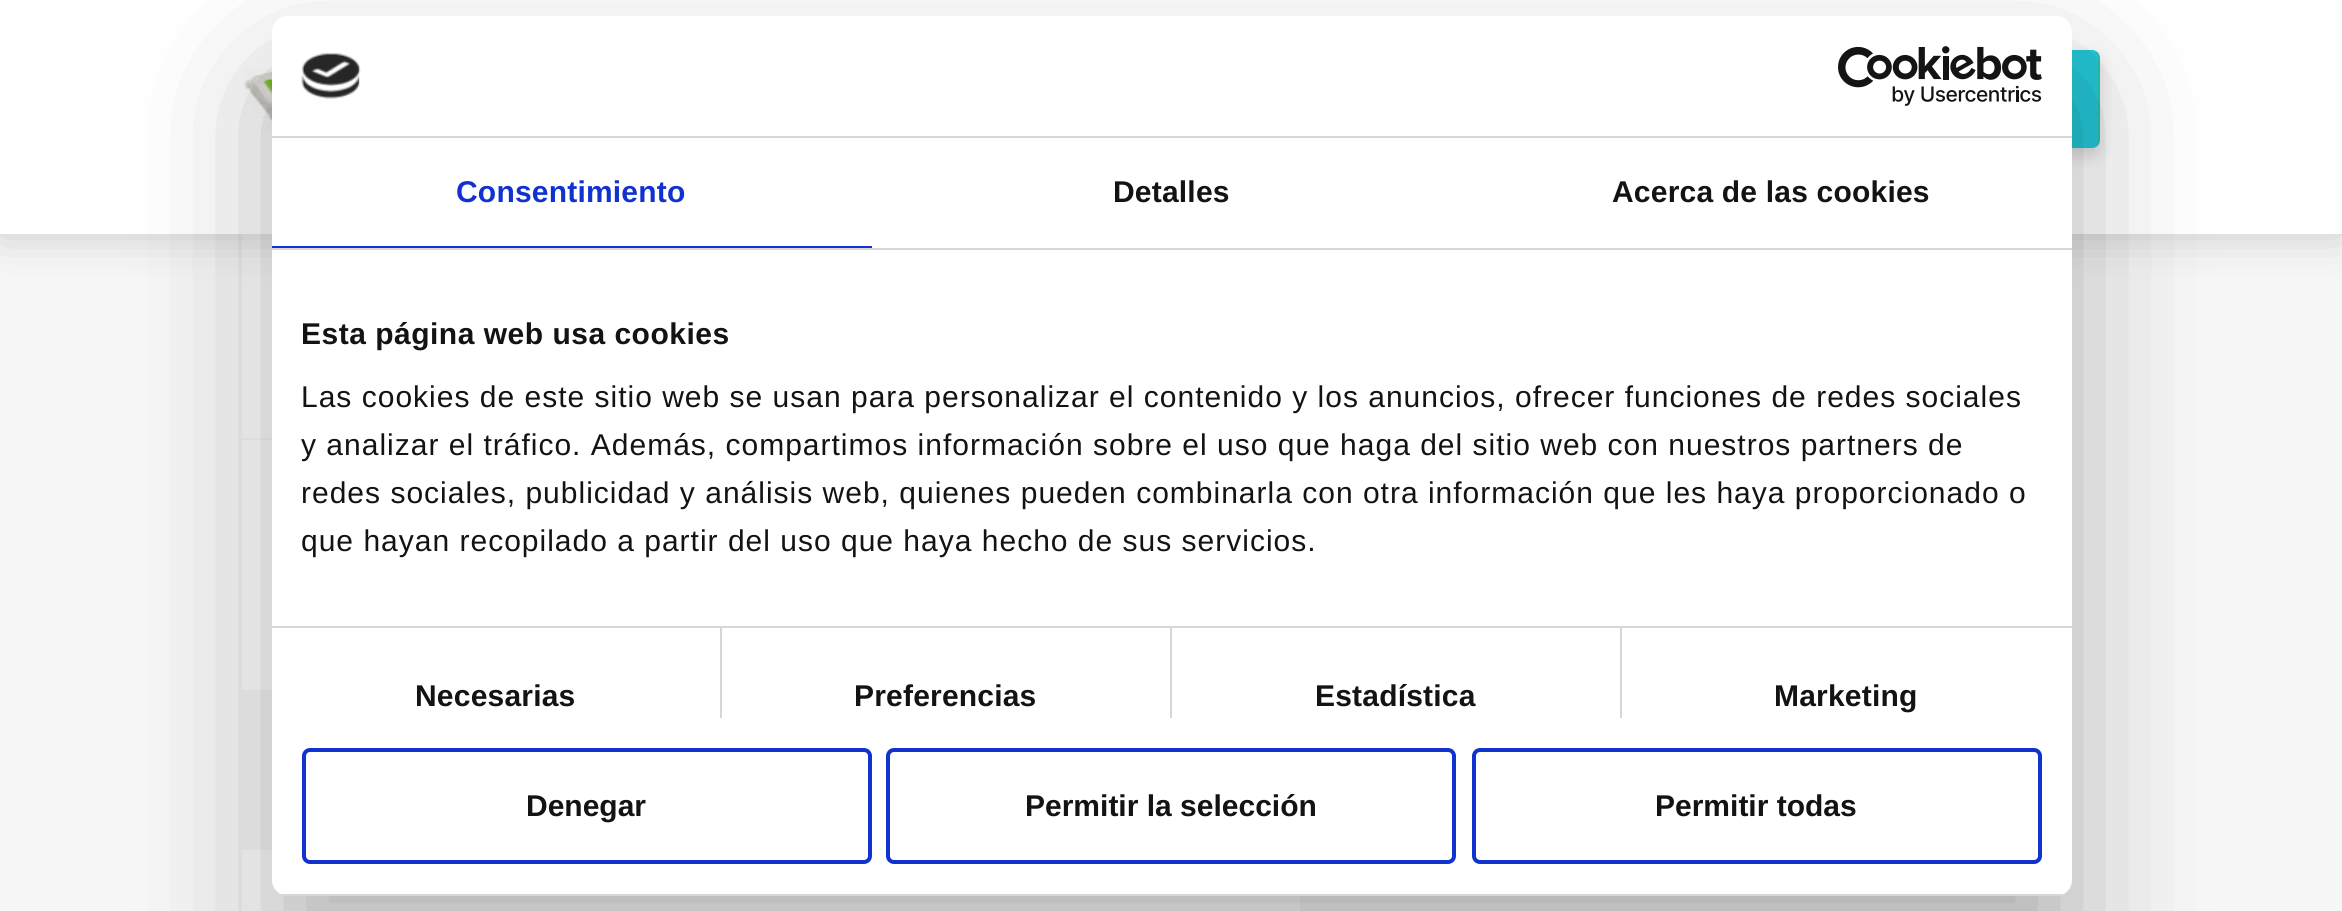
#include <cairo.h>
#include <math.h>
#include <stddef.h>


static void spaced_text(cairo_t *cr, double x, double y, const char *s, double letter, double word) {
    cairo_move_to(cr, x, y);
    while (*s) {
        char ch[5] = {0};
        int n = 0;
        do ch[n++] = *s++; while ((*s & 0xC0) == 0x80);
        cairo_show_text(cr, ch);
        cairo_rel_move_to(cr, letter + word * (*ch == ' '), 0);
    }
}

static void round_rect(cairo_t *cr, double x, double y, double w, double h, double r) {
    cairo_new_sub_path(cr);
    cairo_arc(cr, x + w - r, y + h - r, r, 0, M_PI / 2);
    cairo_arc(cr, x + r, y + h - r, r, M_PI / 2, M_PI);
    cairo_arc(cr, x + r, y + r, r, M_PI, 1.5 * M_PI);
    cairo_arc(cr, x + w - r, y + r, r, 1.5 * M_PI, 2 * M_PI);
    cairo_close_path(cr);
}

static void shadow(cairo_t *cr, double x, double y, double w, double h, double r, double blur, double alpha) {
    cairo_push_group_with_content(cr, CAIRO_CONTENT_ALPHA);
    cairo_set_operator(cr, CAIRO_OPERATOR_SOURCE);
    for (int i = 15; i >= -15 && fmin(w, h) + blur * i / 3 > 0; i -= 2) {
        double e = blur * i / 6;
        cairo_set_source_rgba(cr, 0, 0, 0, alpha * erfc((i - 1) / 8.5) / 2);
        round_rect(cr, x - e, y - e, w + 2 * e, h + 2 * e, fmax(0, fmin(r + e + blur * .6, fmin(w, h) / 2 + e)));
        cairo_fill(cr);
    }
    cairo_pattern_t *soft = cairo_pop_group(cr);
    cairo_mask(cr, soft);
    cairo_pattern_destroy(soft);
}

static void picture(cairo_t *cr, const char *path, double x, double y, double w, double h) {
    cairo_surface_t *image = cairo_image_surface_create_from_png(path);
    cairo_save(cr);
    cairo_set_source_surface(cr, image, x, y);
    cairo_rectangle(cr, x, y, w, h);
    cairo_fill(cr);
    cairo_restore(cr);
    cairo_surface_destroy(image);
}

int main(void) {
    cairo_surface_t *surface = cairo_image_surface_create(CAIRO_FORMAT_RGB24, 2342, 911);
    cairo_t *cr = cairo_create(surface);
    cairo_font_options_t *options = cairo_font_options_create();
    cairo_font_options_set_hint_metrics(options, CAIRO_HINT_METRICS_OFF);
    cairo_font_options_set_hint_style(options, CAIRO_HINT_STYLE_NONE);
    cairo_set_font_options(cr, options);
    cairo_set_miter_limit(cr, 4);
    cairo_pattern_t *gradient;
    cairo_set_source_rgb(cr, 0.965, 0.965, 0.965);
    cairo_paint(cr);
    cairo_set_source_rgb(cr, 1, 1, 1);
    cairo_rectangle(cr, 242, 234, 30, 204);
    cairo_fill(cr);
    cairo_set_source_rgb(cr, 0, 0, 0);
    shadow(cr, 0, -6, 2342, 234, 0, 25, 0.25);
    cairo_set_source_rgb(cr, 1, 1, 1);
    cairo_rectangle(cr, 0, 0, 2342, 234);
    cairo_fill(cr);
    picture(cr, "img1.png", 244, 42, 28, 112);
    cairo_set_source_rgb(cr, 0, 0, 0);
    shadow(cr, 1810, 58, 290, 98, 8, 8, 0.15);
    cairo_save(cr);
    round_rect(cr, 1810, 50, 290, 98, 8);
    cairo_clip(cr);
    gradient = cairo_pattern_create_linear(1807, 4.8, 2104, 5.2);
    cairo_pattern_add_color_stop_rgba(gradient, 0, 0.161, 0.769, 0.663, 1);
    cairo_pattern_add_color_stop_rgba(gradient, 1, 0.137, 0.78, 0.859, 1);
    cairo_set_source(cr, gradient);
    cairo_pattern_destroy(gradient);
    cairo_rectangle(cr, 2072, 50, 26, 2);
    cairo_fill(cr);
    cairo_restore(cr);
    gradient = cairo_pattern_create_linear(1807, 99, 2104, 99);
    cairo_pattern_add_color_stop_rgba(gradient, 0, 0.161, 0.769, 0.663, 1);
    cairo_pattern_add_color_stop_rgba(gradient, 1, 0.137, 0.78, 0.859, 1);
    cairo_set_source(cr, gradient);
    cairo_pattern_destroy(gradient);
    cairo_rectangle(cr, 2072, 52, 26, 94);
    cairo_fill(cr);
    cairo_save(cr);
    round_rect(cr, 1810, 50, 290, 98, 8);
    cairo_clip(cr);
    gradient = cairo_pattern_create_linear(2093, 99, 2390, 99);
    cairo_pattern_add_color_stop_rgba(gradient, 0, 0.161, 0.769, 0.663, 1);
    cairo_pattern_add_color_stop_rgba(gradient, 1, 0.137, 0.78, 0.859, 1);
    cairo_set_source(cr, gradient);
    cairo_pattern_destroy(gradient);
    cairo_rectangle(cr, 2098, 52, 2, 94);
    cairo_fill(cr);
    gradient = cairo_pattern_create_linear(1807, 193, 2104, 193);
    cairo_pattern_add_color_stop_rgba(gradient, 0, 0.161, 0.769, 0.663, 1);
    cairo_pattern_add_color_stop_rgba(gradient, 1, 0.137, 0.78, 0.859, 1);
    cairo_set_source(cr, gradient);
    cairo_pattern_destroy(gradient);
    cairo_rectangle(cr, 2072, 146, 26, 2);
    cairo_fill(cr);
    cairo_restore(cr);
    cairo_set_source_rgb(cr, 1, 1, 1);
    cairo_rectangle(cr, 242, 440, 30, 250);
    cairo_fill(cr);
    cairo_rectangle(cr, 242, 850, 1058, 61);
    cairo_fill(cr);
    cairo_set_source_rgb(cr, 0, 0, 0);
    shadow(cr, 272, 80, 1800, 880, 16, 68, 0.3);
    cairo_set_source_rgb(cr, 1, 1, 1);
    round_rect(cr, 272, 16, 1800, 880, 16);
    cairo_fill(cr);
    cairo_set_source_rgb(cr, 0.839, 0.839, 0.839);
    cairo_rectangle(cr, 272, 136, 1800, 2);
    cairo_fill(cr);
    picture(cr, "img2.png", 301, 53, 60, 46);
    picture(cr, "img3.png", 1838, 46, 204, 60);
    cairo_rectangle(cr, 272, 248, 1800, 2);
    cairo_fill(cr);
    cairo_set_source_rgb(cr, 0.063, 0.196, 0.812);
    cairo_rectangle(cr, 272, 246, 600, 2);
    cairo_fill(cr);
    cairo_select_font_face(cr, "Liberation Sans", CAIRO_FONT_SLANT_NORMAL, CAIRO_FONT_WEIGHT_BOLD);
    cairo_set_font_size(cr, 30);
    spaced_text(cr, 456, 202, "Consentimiento", 0.2, 0);
    cairo_set_source_rgb(cr, 0.078, 0.078, 0.078);
    spaced_text(cr, 1113, 202, "Detalles", 0.2, 0);
    spaced_text(cr, 1612, 202, "Acerca de las cookies", 0.2, 0);
    cairo_set_source_rgb(cr, 0.839, 0.839, 0.839);
    cairo_rectangle(cr, 272, 626, 1800, 2);
    cairo_fill(cr);
    cairo_set_source_rgb(cr, 0.078, 0.078, 0.078);
    spaced_text(cr, 301, 344, "Esta página web usa cookies", 0.5, 0);
    cairo_select_font_face(cr, "Liberation Sans", CAIRO_FONT_SLANT_NORMAL, CAIRO_FONT_WEIGHT_NORMAL);
    spaced_text(cr, 301, 407, "Las cookies de este sitio web se usan para personalizar el contenido y los anuncios, ofrecer funciones de redes sociales", 1, 0);
    spaced_text(cr, 301, 455, "y analizar el tráfico. Además, compartimos información sobre el uso que haga del sitio web con nuestros partners de", 1, 0);
    spaced_text(cr, 301, 503, "redes sociales, publicidad y análisis web, quienes pueden combinarla con otra información que les haya proporcionado o", 1, 0);
    spaced_text(cr, 301, 551, "que hayan recopilado a partir del uso que haya hecho de sus servicios.", 1, 0);
    cairo_set_source_rgb(cr, 0.839, 0.839, 0.839);
    cairo_rectangle(cr, 720, 628, 2, 90);
    cairo_fill(cr);
    cairo_select_font_face(cr, "Liberation Sans", CAIRO_FONT_SLANT_NORMAL, CAIRO_FONT_WEIGHT_BOLD);
    cairo_set_source_rgb(cr, 0.078, 0.078, 0.078);
    spaced_text(cr, 415, 706, "Necesarias", 0.2, 0);
    cairo_set_source_rgb(cr, 0.839, 0.839, 0.839);
    cairo_rectangle(cr, 1170, 628, 2, 90);
    cairo_fill(cr);
    cairo_set_source_rgb(cr, 0.078, 0.078, 0.078);
    spaced_text(cr, 854, 706, "Preferencias", 0.2, 0);
    cairo_set_source_rgb(cr, 0.839, 0.839, 0.839);
    cairo_rectangle(cr, 1620, 628, 2, 90);
    cairo_fill(cr);
    cairo_set_source_rgb(cr, 0.078, 0.078, 0.078);
    spaced_text(cr, 1315, 706, "Estadística", 0.2, 0);
    spaced_text(cr, 1774, 706, "Marketing", 0.2, 0);
    cairo_save(cr);
    round_rect(cr, 272, 16, 1800, 880, 16);
    cairo_clip(cr);
    cairo_set_source_rgb(cr, 0.839, 0.839, 0.839);
    cairo_rectangle(cr, 272, 894, 1800, 2);
    cairo_fill(cr);
    cairo_restore(cr);
    round_rect(cr, 304, 750, 566, 112, 6);
    cairo_set_source_rgb(cr, 0.063, 0.196, 0.812);
    cairo_set_line_width(cr, 4);
    cairo_stroke(cr);
    cairo_set_source_rgb(cr, 0.078, 0.078, 0.078);
    cairo_move_to(cr, 526, 816);
    cairo_show_text(cr, "Denegar");
    round_rect(cr, 888, 750, 566, 112, 6);
    cairo_set_source_rgb(cr, 0.063, 0.196, 0.812);
    cairo_stroke(cr);
    cairo_set_source_rgb(cr, 0.078, 0.078, 0.078);
    cairo_move_to(cr, 1025, 816);
    cairo_show_text(cr, "Permitir la selección");
    round_rect(cr, 1474, 750, 566, 112, 6);
    cairo_set_source_rgb(cr, 0.063, 0.196, 0.812);
    cairo_stroke(cr);
    cairo_set_source_rgb(cr, 0.078, 0.078, 0.078);
    cairo_move_to(cr, 1655, 816);
    cairo_show_text(cr, "Permitir todas");
    cairo_surface_write_to_png(surface, "page.png");
    cairo_font_options_destroy(options);
    cairo_destroy(cr);
    cairo_surface_destroy(surface);
    return 0;
}
